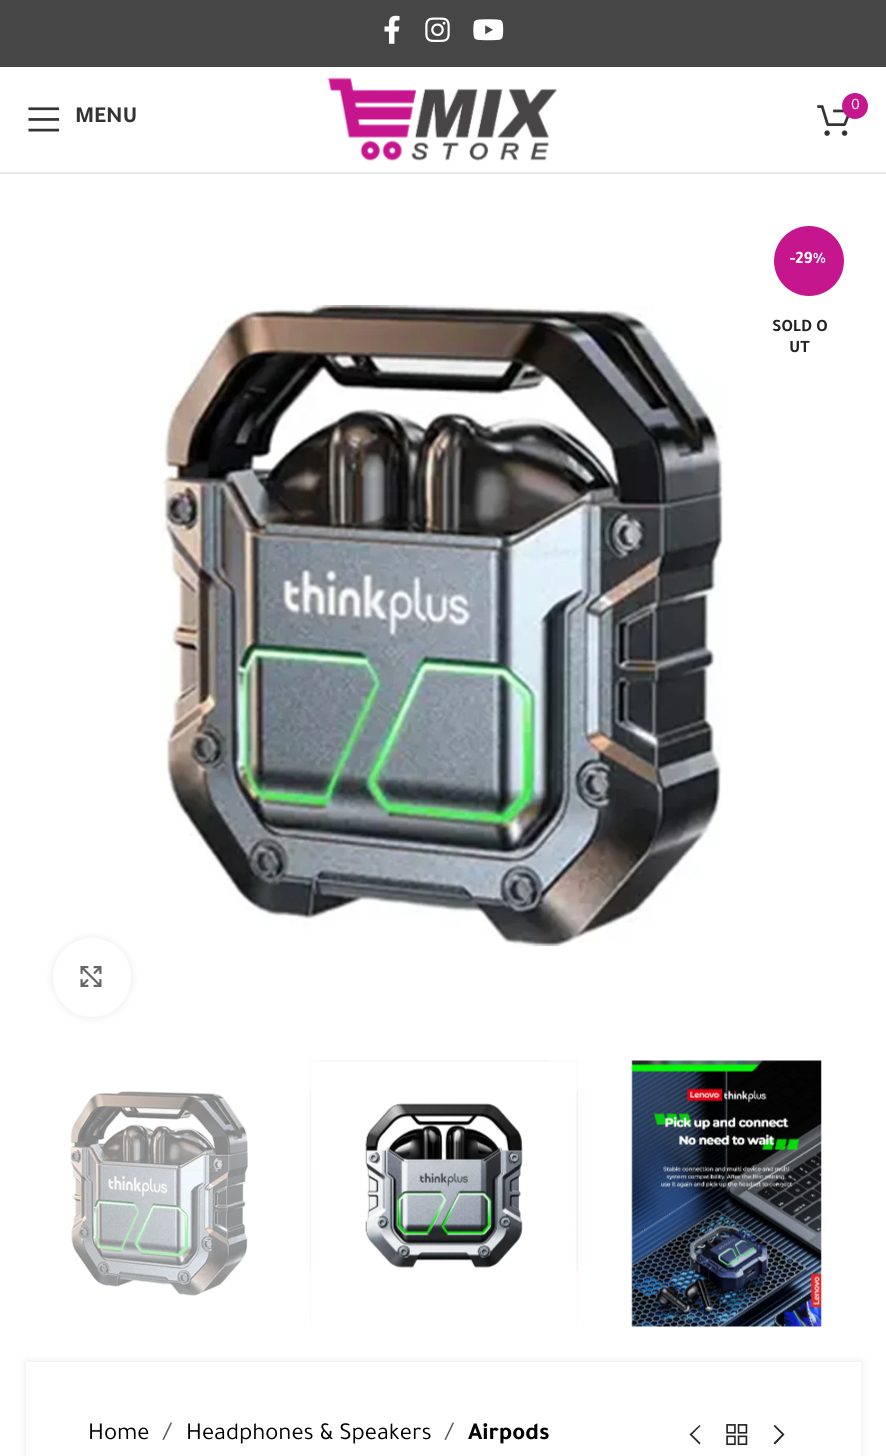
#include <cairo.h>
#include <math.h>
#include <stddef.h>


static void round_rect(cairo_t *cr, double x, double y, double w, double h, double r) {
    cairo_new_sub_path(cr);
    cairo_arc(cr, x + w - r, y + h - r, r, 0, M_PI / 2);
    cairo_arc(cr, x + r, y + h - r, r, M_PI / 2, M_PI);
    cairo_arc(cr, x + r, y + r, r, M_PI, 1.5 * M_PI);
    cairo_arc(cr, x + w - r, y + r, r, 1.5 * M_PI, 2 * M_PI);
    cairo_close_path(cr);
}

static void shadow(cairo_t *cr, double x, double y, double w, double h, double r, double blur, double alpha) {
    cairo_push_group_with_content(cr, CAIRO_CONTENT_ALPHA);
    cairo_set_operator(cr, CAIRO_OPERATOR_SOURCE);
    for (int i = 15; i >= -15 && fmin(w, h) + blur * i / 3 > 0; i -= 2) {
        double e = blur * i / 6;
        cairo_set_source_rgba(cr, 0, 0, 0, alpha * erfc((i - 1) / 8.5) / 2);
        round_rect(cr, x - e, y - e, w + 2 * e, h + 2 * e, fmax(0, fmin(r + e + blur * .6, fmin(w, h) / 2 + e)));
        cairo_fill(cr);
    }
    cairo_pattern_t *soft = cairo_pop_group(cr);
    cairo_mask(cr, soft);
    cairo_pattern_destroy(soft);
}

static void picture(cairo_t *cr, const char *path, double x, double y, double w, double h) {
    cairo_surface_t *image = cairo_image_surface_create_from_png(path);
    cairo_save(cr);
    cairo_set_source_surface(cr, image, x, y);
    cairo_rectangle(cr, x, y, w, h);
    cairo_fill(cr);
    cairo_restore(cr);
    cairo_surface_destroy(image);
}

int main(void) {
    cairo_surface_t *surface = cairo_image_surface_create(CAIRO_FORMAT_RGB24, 886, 1456);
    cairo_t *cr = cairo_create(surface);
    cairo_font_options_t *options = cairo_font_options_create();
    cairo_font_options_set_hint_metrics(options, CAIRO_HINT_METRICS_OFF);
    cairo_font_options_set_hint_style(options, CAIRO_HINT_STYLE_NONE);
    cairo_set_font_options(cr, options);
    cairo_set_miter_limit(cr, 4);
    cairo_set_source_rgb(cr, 1, 1, 1);
    cairo_paint(cr);
    cairo_set_source_rgb(cr, 0.275, 0.275, 0.275);
    cairo_rectangle(cr, 0, 0, 886, 67);
    cairo_fill(cr);
    picture(cr, "img1.png", 384, 15, 16, 29);
    picture(cr, "img2.png", 425, 17, 25, 25);
    picture(cr, "img3.png", 473, 19, 31, 22);
    cairo_set_source_rgb(cr, 0.91, 0.91, 0.91);
    cairo_rectangle(cr, 0, 172, 886, 2);
    cairo_fill(cr);
    picture(cr, "img4.png", 327, 77, 231, 84);
    picture(cr, "img5.png", 817, 105, 32, 31);
    cairo_set_source_rgb(cr, 0.776, 0.086, 0.553);
    cairo_arc(cr, 855, 106, 13, 0, 2 * M_PI);
    cairo_fill(cr);
    cairo_select_font_face(cr, "Tajawal", CAIRO_FONT_SLANT_NORMAL, CAIRO_FONT_WEIGHT_NORMAL);
    cairo_set_font_size(cr, 16);
    cairo_set_source_rgb(cr, 1, 1, 1);
    cairo_move_to(cr, 851, 109);
    cairo_show_text(cr, "0");
    picture(cr, "img6.png", 28, 107, 32, 25);
    cairo_select_font_face(cr, "Tajawal", CAIRO_FONT_SLANT_NORMAL, CAIRO_FONT_WEIGHT_BOLD);
    cairo_set_font_size(cr, 23);
    cairo_set_source_rgb(cr, 0.2, 0.2, 0.2);
    cairo_move_to(cr, 75, 122);
    cairo_show_text(cr, "MENU");
    picture(cr, "img7.png", 160, 305, 563, 642);
    cairo_set_source_rgb(cr, 0.776, 0.086, 0.553);
    cairo_arc(cr, 809, 261, 35, 0, 2 * M_PI);
    cairo_fill(cr);
    cairo_set_font_size(cr, 17.5);
    cairo_set_source_rgb(cr, 1, 1, 1);
    cairo_move_to(cr, 790, 263);
    cairo_show_text(cr, "-29%");
    cairo_set_source_rgb(cr, 0.141, 0.141, 0.141);
    cairo_move_to(cr, 772, 331);
    cairo_show_text(cr, "SOLD O");
    cairo_move_to(cr, 789, 352);
    cairo_show_text(cr, "UT");
    cairo_set_source_rgb(cr, 0, 0, 0);
    shadow(cr, 53, 938, 78, 79, 39, 4.5, 0.08);
    cairo_set_source_rgb(cr, 1, 1, 1);
    round_rect(cr, 53, 938, 78, 79, 39);
    cairo_fill(cr);
    picture(cr, "img8.png", 80, 966, 22, 21);
    picture(cr, "img9.png", 70, 1091, 178, 205);
    picture(cr, "img10.png", 309, 1060, 269, 266);
    picture(cr, "img11.png", 631, 1060, 191, 267);
    cairo_set_source_rgb(cr, 0, 0, 0);
    shadow(cr, 26, 1362, 835, 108, 0, 4.5, 0.1);
    cairo_set_source_rgb(cr, 1, 1, 1);
    cairo_rectangle(cr, 26, 1362, 835, 94);
    cairo_fill(cr);
    cairo_select_font_face(cr, "Tajawal", CAIRO_FONT_SLANT_NORMAL, CAIRO_FONT_WEIGHT_NORMAL);
    cairo_set_font_size(cr, 24.5);
    cairo_set_source_rgb(cr, 0, 0, 0);
    cairo_move_to(cr, 88, 1439);
    cairo_show_text(cr, "Home");
    cairo_set_font_size(cr, 26);
    cairo_set_source_rgb(cr, 0.333, 0.333, 0.333);
    cairo_move_to(cr, 163, 1439);
    cairo_show_text(cr, "/");
    cairo_set_font_size(cr, 24.5);
    cairo_set_source_rgb(cr, 0, 0, 0);
    cairo_move_to(cr, 186, 1439);
    cairo_show_text(cr, "Headphones & Speakers");
    cairo_set_font_size(cr, 26);
    cairo_set_source_rgb(cr, 0.333, 0.333, 0.333);
    cairo_move_to(cr, 445, 1439);
    cairo_show_text(cr, "/");
    cairo_select_font_face(cr, "Tajawal", CAIRO_FONT_SLANT_NORMAL, CAIRO_FONT_WEIGHT_BOLD);
    cairo_set_font_size(cr, 24.5);
    cairo_set_source_rgb(cr, 0, 0, 0);
    cairo_move_to(cr, 468, 1439);
    cairo_show_text(cr, "Airpods");
    cairo_set_source_rgb(cr, 0.141, 0.141, 0.141);
    cairo_new_path(cr);
    cairo_move_to(cr, 700.5, 1426);
    cairo_line_to(cr, 699.5, 1425);
    cairo_line_to(cr, 689.5, 1434.5);
    cairo_line_to(cr, 699.5, 1444.5);
    cairo_line_to(cr, 700.5, 1443);
    cairo_line_to(cr, 692, 1434.5);
    cairo_close_path(cr);
    cairo_fill(cr);
    picture(cr, "img12.png", 726, 1424, 22, 22);
    cairo_new_path(cr);
    cairo_move_to(cr, 773.5, 1426);
    cairo_line_to(cr, 782, 1434.5);
    cairo_line_to(cr, 773.5, 1443);
    cairo_line_to(cr, 775, 1444.5);
    cairo_line_to(cr, 784.5, 1434.5);
    cairo_line_to(cr, 775, 1425);
    cairo_close_path(cr);
    cairo_fill(cr);
    cairo_surface_write_to_png(surface, "page.png");
    cairo_font_options_destroy(options);
    cairo_destroy(cr);
    cairo_surface_destroy(surface);
    return 0;
}
